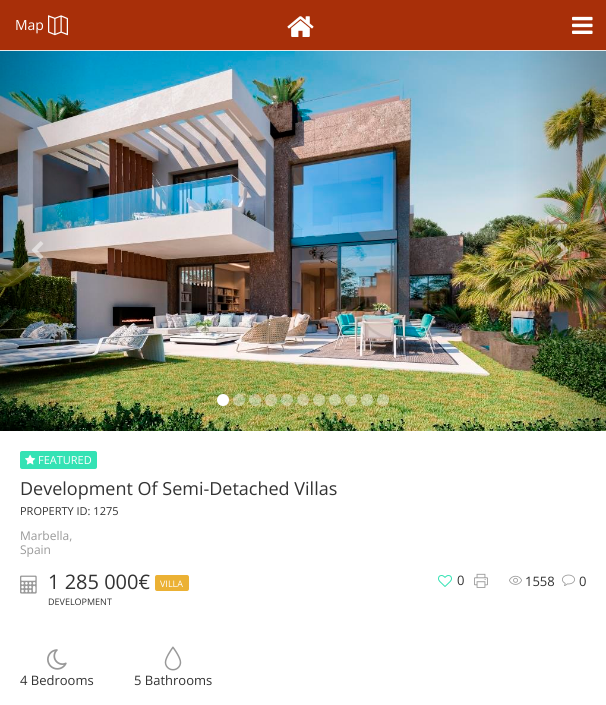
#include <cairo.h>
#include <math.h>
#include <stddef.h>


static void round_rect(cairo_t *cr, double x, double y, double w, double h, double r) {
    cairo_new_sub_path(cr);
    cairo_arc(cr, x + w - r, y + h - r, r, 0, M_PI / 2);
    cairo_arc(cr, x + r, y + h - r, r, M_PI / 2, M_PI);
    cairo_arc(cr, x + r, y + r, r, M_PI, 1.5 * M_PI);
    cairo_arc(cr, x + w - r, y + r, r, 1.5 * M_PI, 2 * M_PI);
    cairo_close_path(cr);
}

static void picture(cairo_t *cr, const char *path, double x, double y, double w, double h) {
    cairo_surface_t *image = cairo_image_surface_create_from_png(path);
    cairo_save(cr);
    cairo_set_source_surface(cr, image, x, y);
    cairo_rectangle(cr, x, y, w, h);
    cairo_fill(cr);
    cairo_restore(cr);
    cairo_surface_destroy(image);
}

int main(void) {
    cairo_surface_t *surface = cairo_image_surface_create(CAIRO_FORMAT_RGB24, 606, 705);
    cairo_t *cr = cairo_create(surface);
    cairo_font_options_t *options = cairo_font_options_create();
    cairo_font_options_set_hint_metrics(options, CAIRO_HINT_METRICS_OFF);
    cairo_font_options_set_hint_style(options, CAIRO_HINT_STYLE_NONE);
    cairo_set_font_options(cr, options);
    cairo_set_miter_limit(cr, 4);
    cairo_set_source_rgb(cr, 0.91, 0.91, 0.91);
    cairo_paint(cr);
    cairo_set_source_rgb(cr, 0.659, 0.184, 0.039);
    cairo_rectangle(cr, 0, 0, 606, 50);
    cairo_fill(cr);
    cairo_select_font_face(cr, "Open Sans", CAIRO_FONT_SLANT_NORMAL, CAIRO_FONT_WEIGHT_NORMAL);
    cairo_set_font_size(cr, 14);
    cairo_set_source_rgb(cr, 1, 1, 1);
    cairo_move_to(cr, 15, 30);
    cairo_show_text(cr, "Map");
    picture(cr, "img1.png", 48, 15, 20, 21);
    picture(cr, "img2.png", 287, 16, 27, 21);
    picture(cr, "img3.png", 572, 16, 21, 18);
    cairo_rectangle(cr, 0, 431, 606, 274);
    cairo_fill(cr);
    picture(cr, "img4.png", 0, 51, 606, 380);
    picture(cr, "img5.png", 31, 241, 13, 18);
    picture(cr, "img6.png", 557, 241, 12, 19);
    cairo_arc(cr, 223, 400, 6, 0, 2 * M_PI);
    cairo_fill(cr);
    cairo_set_source_rgba(cr, 1, 1, 1, 0.4);
    cairo_arc(cr, 239, 400, 6, 0, 2 * M_PI);
    cairo_fill(cr);
    cairo_arc(cr, 255, 400, 6, 0, 2 * M_PI);
    cairo_fill(cr);
    cairo_arc(cr, 271, 400, 6, 0, 2 * M_PI);
    cairo_fill(cr);
    cairo_arc(cr, 287, 400, 6, 0, 2 * M_PI);
    cairo_fill(cr);
    cairo_arc(cr, 303, 400, 6, 0, 2 * M_PI);
    cairo_fill(cr);
    cairo_arc(cr, 319, 400, 6, 0, 2 * M_PI);
    cairo_fill(cr);
    cairo_arc(cr, 335, 400, 6, 0, 2 * M_PI);
    cairo_fill(cr);
    cairo_arc(cr, 351, 400, 6, 0, 2 * M_PI);
    cairo_fill(cr);
    cairo_arc(cr, 367, 400, 6, 0, 2 * M_PI);
    cairo_fill(cr);
    cairo_arc(cr, 383, 400, 6, 0, 2 * M_PI);
    cairo_fill(cr);
    cairo_set_source_rgb(cr, 0.204, 0.886, 0.706);
    round_rect(cr, 20, 451, 77, 18, 2);
    cairo_fill(cr);
    picture(cr, "img7.png", 25, 454, 11, 11);
    cairo_set_font_size(cr, 11);
    cairo_set_source_rgb(cr, 1, 1, 1);
    cairo_move_to(cr, 38, 464);
    cairo_show_text(cr, "FEATURED");
    cairo_set_font_size(cr, 18);
    cairo_set_source_rgb(cr, 0.2, 0.2, 0.2);
    cairo_move_to(cr, 20, 495);
    cairo_show_text(cr, "Development Of Semi-Detached Villas");
    cairo_set_font_size(cr, 11);
    cairo_move_to(cr, 20, 515);
    cairo_show_text(cr, "PROPERTY ID: 1275");
    cairo_set_font_size(cr, 12);
    cairo_set_source_rgb(cr, 0.6, 0.6, 0.6);
    cairo_move_to(cr, 20, 540);
    cairo_show_text(cr, "Marbella,");
    cairo_move_to(cr, 20, 554);
    cairo_show_text(cr, "Spain");
    picture(cr, "img8.png", 20, 575, 17, 19);
    cairo_set_font_size(cr, 20);
    cairo_set_source_rgb(cr, 0.2, 0.2, 0.2);
    cairo_move_to(cr, 48, 589);
    cairo_show_text(cr, "1 285 000€");
    cairo_set_source_rgb(cr, 0.918, 0.694, 0.204);
    round_rect(cr, 155, 575, 34, 16, 2);
    cairo_fill(cr);
    cairo_set_font_size(cr, 9);
    cairo_set_source_rgb(cr, 1, 1, 1);
    cairo_move_to(cr, 160, 587);
    cairo_show_text(cr, "VILLA");
    cairo_set_source_rgb(cr, 0.2, 0.2, 0.2);
    cairo_move_to(cr, 48, 605);
    cairo_show_text(cr, "DEVELOPMENT");
    picture(cr, "img9.png", 438, 575, 14, 12);
    cairo_set_font_size(cr, 13);
    cairo_move_to(cr, 457, 585);
    cairo_show_text(cr, "0");
    picture(cr, "img10.png", 474, 573, 14, 15);
    picture(cr, "img11.png", 509, 575, 13, 10);
    cairo_move_to(cr, 525, 586);
    cairo_show_text(cr, "1558");
    picture(cr, "img12.png", 562, 574, 13, 12);
    cairo_move_to(cr, 579, 586);
    cairo_show_text(cr, "0");
    picture(cr, "img13.png", 47, 649, 20, 21);
    cairo_move_to(cr, 20, 685);
    cairo_show_text(cr, "4 Bedrooms");
    picture(cr, "img14.png", 164, 646, 18, 25);
    cairo_move_to(cr, 134, 685);
    cairo_show_text(cr, "5 Bathrooms");
    cairo_surface_write_to_png(surface, "page.png");
    cairo_font_options_destroy(options);
    cairo_destroy(cr);
    cairo_surface_destroy(surface);
    return 0;
}
